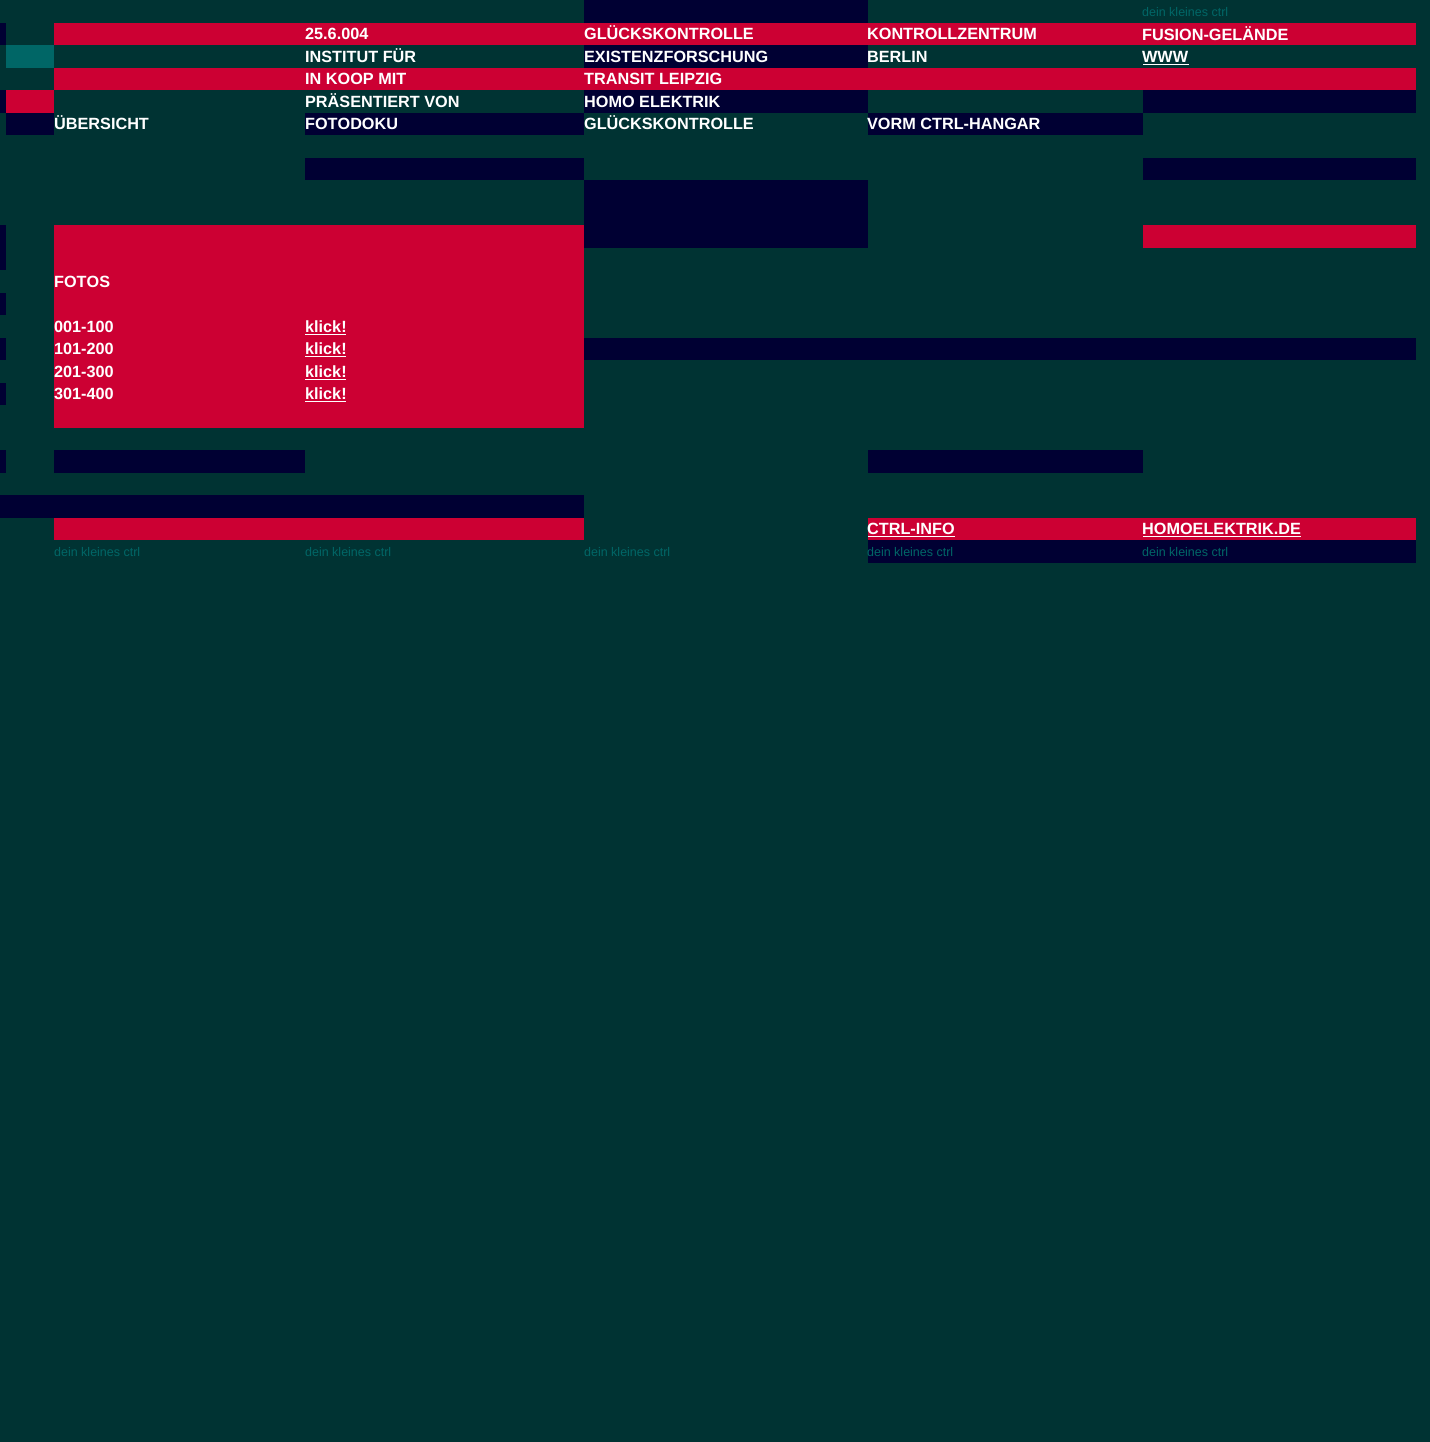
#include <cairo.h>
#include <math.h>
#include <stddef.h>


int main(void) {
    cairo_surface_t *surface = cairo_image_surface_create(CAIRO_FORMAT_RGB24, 1430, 1442);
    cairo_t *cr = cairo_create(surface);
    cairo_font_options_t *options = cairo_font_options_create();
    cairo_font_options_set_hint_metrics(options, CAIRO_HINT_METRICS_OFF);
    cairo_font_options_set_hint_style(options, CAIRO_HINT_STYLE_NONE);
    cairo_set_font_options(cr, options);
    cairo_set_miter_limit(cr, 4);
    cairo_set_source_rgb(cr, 0, 0.2, 0.2);
    cairo_paint(cr);
    cairo_set_source_rgb(cr, 0, 0, 0.2);
    cairo_rectangle(cr, 584, 0, 284, 23);
    cairo_fill(cr);
    cairo_select_font_face(cr, "Liberation Sans", CAIRO_FONT_SLANT_NORMAL, CAIRO_FONT_WEIGHT_NORMAL);
    cairo_set_font_size(cr, 12.5);
    cairo_set_source_rgb(cr, 0, 0.4, 0.4);
    cairo_move_to(cr, 1142, 16);
    cairo_show_text(cr, "dein kleines ctrl");
    cairo_set_source_rgb(cr, 0, 0, 0.2);
    cairo_rectangle(cr, 0, 23, 6, 22);
    cairo_fill(cr);
    cairo_set_source_rgb(cr, 0.8, 0, 0.2);
    cairo_rectangle(cr, 54, 23, 1362, 22);
    cairo_fill(cr);
    cairo_select_font_face(cr, "Liberation Sans", CAIRO_FONT_SLANT_NORMAL, CAIRO_FONT_WEIGHT_BOLD);
    cairo_set_font_size(cr, 16.25);
    cairo_set_source_rgb(cr, 1, 1, 1);
    cairo_move_to(cr, 305, 39);
    cairo_show_text(cr, "25.6.004");
    cairo_move_to(cr, 584, 39);
    cairo_show_text(cr, "GLÜCKSKONTROLLE");
    cairo_move_to(cr, 867, 39);
    cairo_show_text(cr, "KONTROLLZENTRUM");
    cairo_move_to(cr, 1142, 40);
    cairo_show_text(cr, "FUSION-GELÄNDE");
    cairo_set_source_rgb(cr, 0, 0.4, 0.4);
    cairo_rectangle(cr, 6, 45, 48, 23);
    cairo_fill(cr);
    cairo_set_source_rgb(cr, 1, 1, 1);
    cairo_move_to(cr, 305, 62);
    cairo_show_text(cr, "INSTITUT FÜR");
    cairo_set_source_rgb(cr, 0, 0, 0.2);
    cairo_rectangle(cr, 584, 45, 284, 23);
    cairo_fill(cr);
    cairo_set_source_rgb(cr, 1, 1, 1);
    cairo_move_to(cr, 584, 62);
    cairo_show_text(cr, "EXISTENZFORSCHUNG");
    cairo_move_to(cr, 867, 62);
    cairo_show_text(cr, "BERLIN");
    cairo_move_to(cr, 1142, 62);
    cairo_show_text(cr, "WWW");
    cairo_rectangle(cr, 1143, 64, 46, 1);
    cairo_fill(cr);
    cairo_set_source_rgb(cr, 0.8, 0, 0.2);
    cairo_rectangle(cr, 54, 68, 1362, 22);
    cairo_fill(cr);
    cairo_set_source_rgb(cr, 1, 1, 1);
    cairo_move_to(cr, 305, 84);
    cairo_show_text(cr, "IN KOOP MIT");
    cairo_move_to(cr, 584, 84);
    cairo_show_text(cr, "TRANSIT LEIPZIG");
    cairo_set_source_rgb(cr, 0, 0, 0.2);
    cairo_rectangle(cr, 0, 90, 6, 23);
    cairo_fill(cr);
    cairo_set_source_rgb(cr, 0.8, 0, 0.2);
    cairo_rectangle(cr, 6, 90, 48, 23);
    cairo_fill(cr);
    cairo_set_source_rgb(cr, 1, 1, 1);
    cairo_move_to(cr, 305, 107);
    cairo_show_text(cr, "PRÄSENTIERT VON");
    cairo_set_source_rgb(cr, 0, 0, 0.2);
    cairo_rectangle(cr, 584, 90, 284, 23);
    cairo_fill(cr);
    cairo_set_source_rgb(cr, 1, 1, 1);
    cairo_move_to(cr, 584, 107);
    cairo_show_text(cr, "HOMO ELEKTRIK");
    cairo_set_source_rgb(cr, 0, 0, 0.2);
    cairo_rectangle(cr, 1143, 90, 273, 23);
    cairo_fill(cr);
    cairo_rectangle(cr, 6, 113, 48, 22);
    cairo_fill(cr);
    cairo_set_source_rgb(cr, 1, 1, 1);
    cairo_move_to(cr, 54, 129);
    cairo_show_text(cr, "ÜBERSICHT");
    cairo_set_source_rgb(cr, 0, 0, 0.2);
    cairo_rectangle(cr, 305, 113, 279, 22);
    cairo_fill(cr);
    cairo_set_source_rgb(cr, 1, 1, 1);
    cairo_move_to(cr, 305, 129);
    cairo_show_text(cr, "FOTODOKU");
    cairo_move_to(cr, 584, 129);
    cairo_show_text(cr, "GLÜCKSKONTROLLE");
    cairo_set_source_rgb(cr, 0, 0, 0.2);
    cairo_rectangle(cr, 868, 113, 275, 22);
    cairo_fill(cr);
    cairo_set_source_rgb(cr, 1, 1, 1);
    cairo_move_to(cr, 867, 129);
    cairo_show_text(cr, "VORM CTRL-HANGAR");
    cairo_set_source_rgb(cr, 0, 0, 0.2);
    cairo_rectangle(cr, 305, 158, 279, 22);
    cairo_fill(cr);
    cairo_rectangle(cr, 1143, 158, 273, 22);
    cairo_fill(cr);
    cairo_rectangle(cr, 584, 180, 284, 68);
    cairo_fill(cr);
    cairo_rectangle(cr, 0, 225, 6, 45);
    cairo_fill(cr);
    cairo_set_source_rgb(cr, 0.8, 0, 0.2);
    cairo_rectangle(cr, 54, 225, 530, 23);
    cairo_fill(cr);
    cairo_rectangle(cr, 1143, 225, 273, 23);
    cairo_fill(cr);
    cairo_rectangle(cr, 54, 248, 530, 22);
    cairo_fill(cr);
    cairo_rectangle(cr, 54, 270, 530, 23);
    cairo_fill(cr);
    cairo_set_source_rgb(cr, 1, 1, 1);
    cairo_move_to(cr, 54, 287);
    cairo_show_text(cr, "FOTOS");
    cairo_set_source_rgb(cr, 0, 0, 0.2);
    cairo_rectangle(cr, 0, 293, 6, 22);
    cairo_fill(cr);
    cairo_set_source_rgb(cr, 0.8, 0, 0.2);
    cairo_rectangle(cr, 54, 293, 530, 22);
    cairo_fill(cr);
    cairo_rectangle(cr, 54, 315, 530, 23);
    cairo_fill(cr);
    cairo_set_source_rgb(cr, 1, 1, 1);
    cairo_move_to(cr, 54, 332);
    cairo_show_text(cr, "001-100");
    cairo_move_to(cr, 305, 332);
    cairo_show_text(cr, "klick!");
    cairo_rectangle(cr, 305, 334, 41, 1);
    cairo_fill(cr);
    cairo_set_source_rgb(cr, 0, 0, 0.2);
    cairo_rectangle(cr, 0, 338, 6, 22);
    cairo_fill(cr);
    cairo_set_source_rgb(cr, 0.8, 0, 0.2);
    cairo_rectangle(cr, 54, 338, 530, 22);
    cairo_fill(cr);
    cairo_set_source_rgb(cr, 1, 1, 1);
    cairo_move_to(cr, 54, 354);
    cairo_show_text(cr, "101-200");
    cairo_move_to(cr, 305, 354);
    cairo_show_text(cr, "klick!");
    cairo_rectangle(cr, 305, 356, 41, 1);
    cairo_fill(cr);
    cairo_set_source_rgb(cr, 0, 0, 0.2);
    cairo_rectangle(cr, 584, 338, 832, 22);
    cairo_fill(cr);
    cairo_set_source_rgb(cr, 0.8, 0, 0.2);
    cairo_rectangle(cr, 54, 360, 530, 23);
    cairo_fill(cr);
    cairo_set_source_rgb(cr, 1, 1, 1);
    cairo_move_to(cr, 54, 377);
    cairo_show_text(cr, "201-300");
    cairo_move_to(cr, 305, 377);
    cairo_show_text(cr, "klick!");
    cairo_rectangle(cr, 305, 379, 41, 1);
    cairo_fill(cr);
    cairo_set_source_rgb(cr, 0, 0, 0.2);
    cairo_rectangle(cr, 0, 383, 6, 22);
    cairo_fill(cr);
    cairo_set_source_rgb(cr, 0.8, 0, 0.2);
    cairo_rectangle(cr, 54, 383, 530, 22);
    cairo_fill(cr);
    cairo_set_source_rgb(cr, 1, 1, 1);
    cairo_move_to(cr, 54, 399);
    cairo_show_text(cr, "301-400");
    cairo_move_to(cr, 305, 399);
    cairo_show_text(cr, "klick!");
    cairo_rectangle(cr, 305, 401, 41, 1);
    cairo_fill(cr);
    cairo_set_source_rgb(cr, 0.8, 0, 0.2);
    cairo_rectangle(cr, 54, 405, 530, 23);
    cairo_fill(cr);
    cairo_set_source_rgb(cr, 0, 0, 0.2);
    cairo_rectangle(cr, 0, 450, 6, 23);
    cairo_fill(cr);
    cairo_rectangle(cr, 54, 450, 251, 23);
    cairo_fill(cr);
    cairo_rectangle(cr, 868, 450, 275, 23);
    cairo_fill(cr);
    cairo_rectangle(cr, 0, 495, 584, 23);
    cairo_fill(cr);
    cairo_set_source_rgb(cr, 0.8, 0, 0.2);
    cairo_rectangle(cr, 54, 518, 530, 22);
    cairo_fill(cr);
    cairo_rectangle(cr, 868, 518, 548, 22);
    cairo_fill(cr);
    cairo_set_source_rgb(cr, 1, 1, 1);
    cairo_move_to(cr, 867, 534);
    cairo_show_text(cr, "CTRL-INFO");
    cairo_rectangle(cr, 868, 536, 87, 1);
    cairo_fill(cr);
    cairo_move_to(cr, 1142, 534);
    cairo_show_text(cr, "HOMOELEKTRIK.DE");
    cairo_rectangle(cr, 1143, 536, 158, 1);
    cairo_fill(cr);
    cairo_select_font_face(cr, "Liberation Sans", CAIRO_FONT_SLANT_NORMAL, CAIRO_FONT_WEIGHT_NORMAL);
    cairo_set_font_size(cr, 12.5);
    cairo_set_source_rgb(cr, 0, 0.4, 0.4);
    cairo_move_to(cr, 54, 556);
    cairo_show_text(cr, "dein kleines ctrl");
    cairo_move_to(cr, 305, 556);
    cairo_show_text(cr, "dein kleines ctrl");
    cairo_move_to(cr, 584, 556);
    cairo_show_text(cr, "dein kleines ctrl");
    cairo_set_source_rgb(cr, 0, 0, 0.2);
    cairo_rectangle(cr, 868, 540, 548, 23);
    cairo_fill(cr);
    cairo_set_source_rgb(cr, 0, 0.4, 0.4);
    cairo_move_to(cr, 867, 556);
    cairo_show_text(cr, "dein kleines ctrl");
    cairo_move_to(cr, 1142, 556);
    cairo_show_text(cr, "dein kleines ctrl");
    cairo_surface_write_to_png(surface, "page.png");
    cairo_font_options_destroy(options);
    cairo_destroy(cr);
    cairo_surface_destroy(surface);
    return 0;
}
